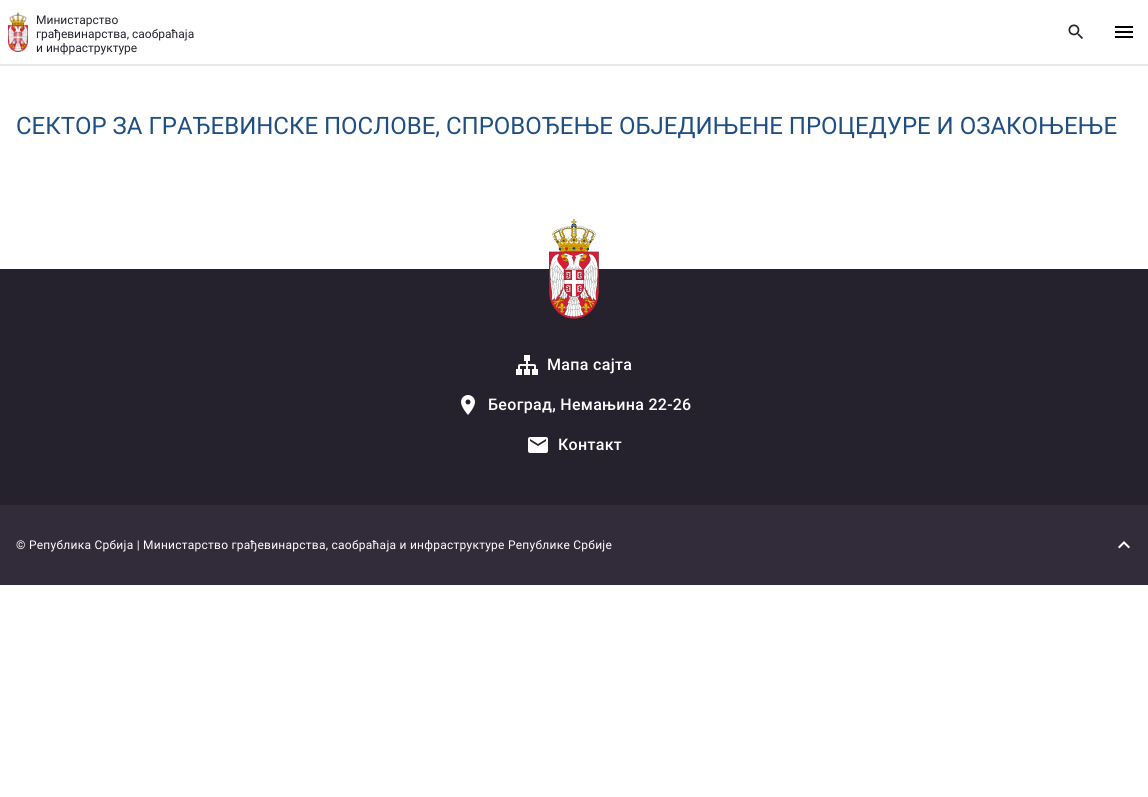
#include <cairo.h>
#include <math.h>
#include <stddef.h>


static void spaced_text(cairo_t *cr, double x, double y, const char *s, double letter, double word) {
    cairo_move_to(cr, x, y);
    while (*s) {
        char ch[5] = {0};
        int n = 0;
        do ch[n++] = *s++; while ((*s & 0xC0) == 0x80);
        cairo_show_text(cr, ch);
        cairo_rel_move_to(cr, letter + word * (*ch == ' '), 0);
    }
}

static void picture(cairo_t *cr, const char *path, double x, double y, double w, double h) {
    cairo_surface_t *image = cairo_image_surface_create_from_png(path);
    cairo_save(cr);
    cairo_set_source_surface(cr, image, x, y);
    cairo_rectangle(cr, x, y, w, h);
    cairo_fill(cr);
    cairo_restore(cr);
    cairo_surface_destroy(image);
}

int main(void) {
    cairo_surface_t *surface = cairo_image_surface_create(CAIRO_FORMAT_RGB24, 1148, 797);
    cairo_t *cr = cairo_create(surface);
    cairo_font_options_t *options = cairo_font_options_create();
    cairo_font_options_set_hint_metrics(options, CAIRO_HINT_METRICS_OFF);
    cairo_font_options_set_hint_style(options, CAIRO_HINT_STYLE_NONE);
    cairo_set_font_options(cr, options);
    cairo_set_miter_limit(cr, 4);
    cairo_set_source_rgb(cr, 1, 1, 1);
    cairo_paint(cr);
    cairo_set_source_rgb(cr, 0.914, 0.914, 0.918);
    cairo_rectangle(cr, 0, 64, 1148, 2);
    cairo_fill(cr);
    picture(cr, "img1.png", 8, 12, 20, 40);
    cairo_select_font_face(cr, "Roboto", CAIRO_FONT_SLANT_NORMAL, CAIRO_FONT_WEIGHT_NORMAL);
    cairo_set_font_size(cr, 12);
    cairo_set_source_rgb(cr, 0.145, 0.129, 0.176);
    cairo_move_to(cr, 36, 24);
    cairo_show_text(cr, "Министарство");
    cairo_move_to(cr, 36, 38);
    cairo_show_text(cr, "грађевинарства, саобраћаја");
    cairo_move_to(cr, 36, 52);
    cairo_show_text(cr, "и инфраструктуре");
    picture(cr, "img2.png", 1068, 24, 15, 15);
    picture(cr, "img3.png", 1115, 26, 18, 12);
    cairo_set_font_size(cr, 24);
    cairo_set_source_rgb(cr, 0.122, 0.31, 0.51);
    cairo_move_to(cr, 16, 134);
    cairo_show_text(cr, "СЕКТОР ЗА ГРАЂЕВИНСКЕ ПОСЛОВЕ, СПРОВОЂЕЊЕ ОБЈЕДИЊЕНЕ ПРОЦЕДУРЕ И ОЗАКОЊЕЊЕ");
    cairo_set_source_rgb(cr, 0.145, 0.129, 0.176);
    cairo_rectangle(cr, 0, 269, 1148, 236);
    cairo_fill(cr);
    picture(cr, "img4.png", 549, 219, 50, 100);
    picture(cr, "img5.png", 516, 355, 22, 20);
    cairo_select_font_face(cr, "Roboto Medium", CAIRO_FONT_SLANT_NORMAL, CAIRO_FONT_WEIGHT_NORMAL);
    cairo_set_font_size(cr, 16);
    cairo_set_source_rgb(cr, 1, 1, 1);
    spaced_text(cr, 547, 370, "Мапа сајта", 0.3, 0);
    picture(cr, "img6.png", 461, 395, 14, 20);
    spaced_text(cr, 488, 410, "Београд, Немањина 22-26", 0.3, 0);
    picture(cr, "img7.png", 528, 437, 20, 16);
    spaced_text(cr, 558, 450, "Контакт", 0.3, 0);
    cairo_set_source_rgb(cr, 0.192, 0.169, 0.227);
    cairo_rectangle(cr, 0, 505, 1148, 80);
    cairo_fill(cr);
    cairo_select_font_face(cr, "Roboto", CAIRO_FONT_SLANT_NORMAL, CAIRO_FONT_WEIGHT_NORMAL);
    cairo_set_font_size(cr, 12);
    cairo_set_source_rgb(cr, 1, 1, 1);
    spaced_text(cr, 16, 549, "© Република Србија | Министарство грађевинарства, саобраћаја и инфраструктуре Републике Србије", 0.25, 0);
    picture(cr, "img8.png", 1118, 541, 12, 8);
    cairo_surface_write_to_png(surface, "page.png");
    cairo_font_options_destroy(options);
    cairo_destroy(cr);
    cairo_surface_destroy(surface);
    return 0;
}
